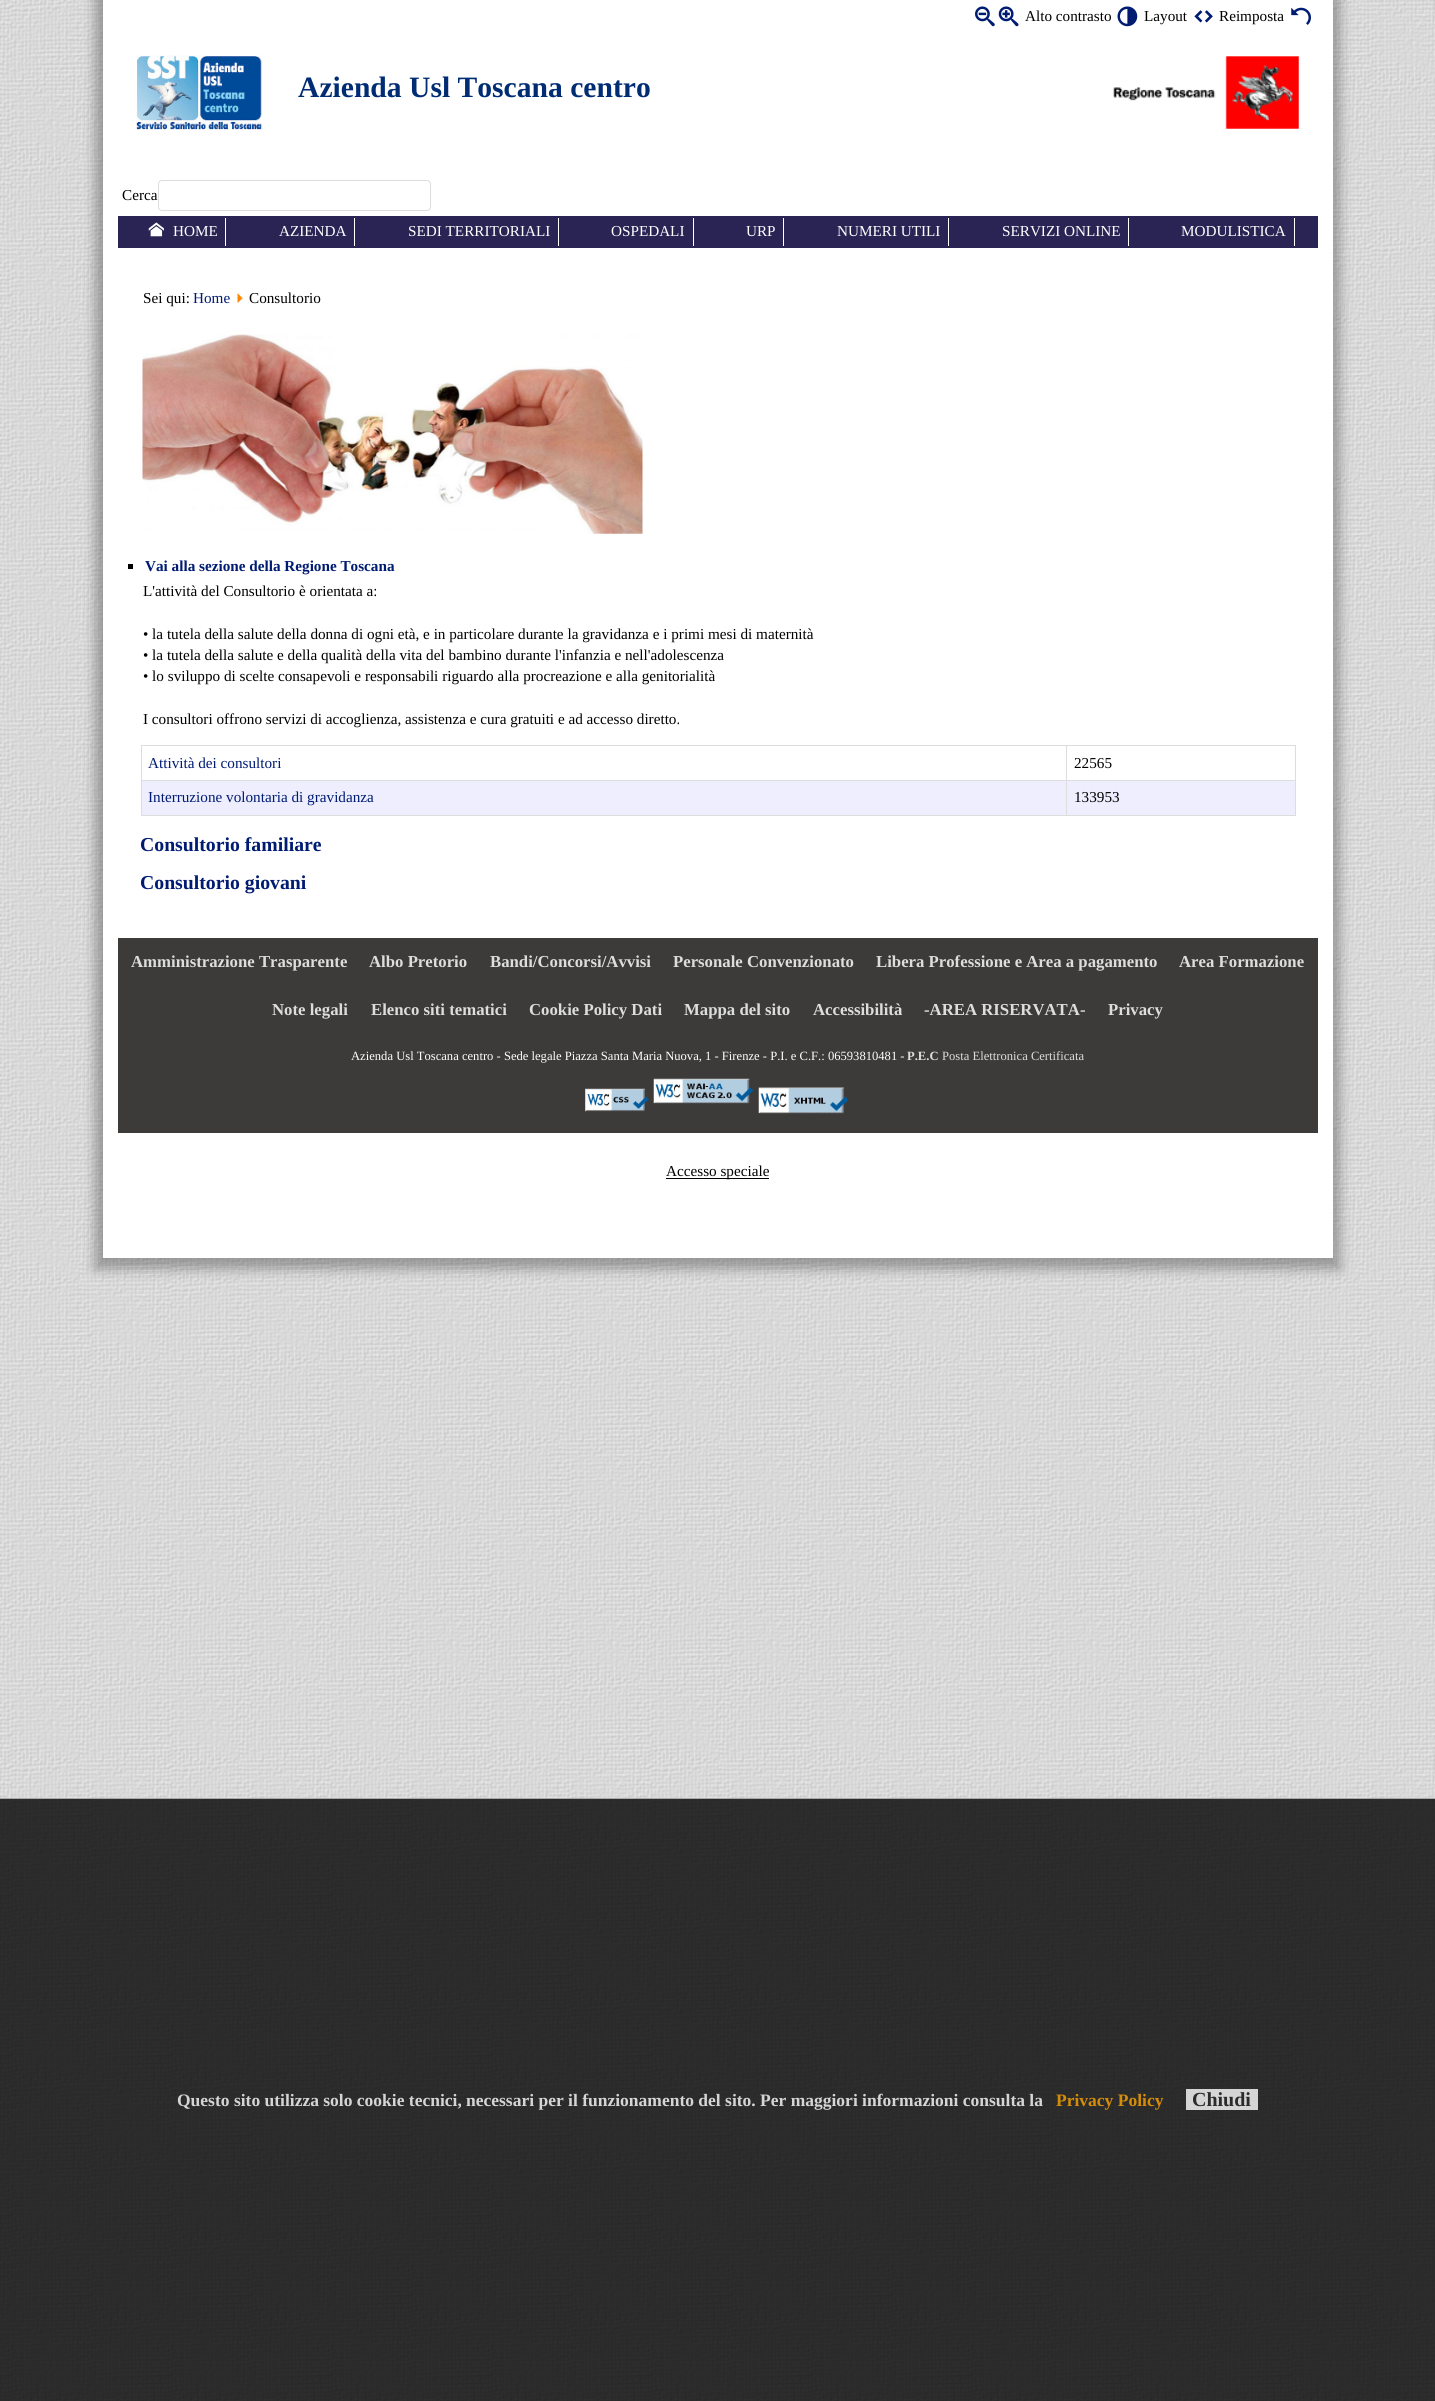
#include <cairo.h>
#include <math.h>
#include <stddef.h>


static void round_rect(cairo_t *cr, double x, double y, double w, double h, double r) {
    cairo_new_sub_path(cr);
    cairo_arc(cr, x + w - r, y + h - r, r, 0, M_PI / 2);
    cairo_arc(cr, x + r, y + h - r, r, M_PI / 2, M_PI);
    cairo_arc(cr, x + r, y + r, r, M_PI, 1.5 * M_PI);
    cairo_arc(cr, x + w - r, y + r, r, 1.5 * M_PI, 2 * M_PI);
    cairo_close_path(cr);
}

static void shadow(cairo_t *cr, double x, double y, double w, double h, double r, double blur, double alpha) {
    cairo_push_group_with_content(cr, CAIRO_CONTENT_ALPHA);
    cairo_set_operator(cr, CAIRO_OPERATOR_SOURCE);
    for (int i = 15; i >= -15 && fmin(w, h) + blur * i / 3 > 0; i -= 2) {
        double e = blur * i / 6;
        cairo_set_source_rgba(cr, 0, 0, 0, alpha * erfc((i - 1) / 8.5) / 2);
        round_rect(cr, x - e, y - e, w + 2 * e, h + 2 * e, fmax(0, fmin(r + e + blur * .6, fmin(w, h) / 2 + e)));
        cairo_fill(cr);
    }
    cairo_pattern_t *soft = cairo_pop_group(cr);
    cairo_mask(cr, soft);
    cairo_pattern_destroy(soft);
}

static void picture(cairo_t *cr, const char *path, double x, double y, double w, double h) {
    cairo_surface_t *image = cairo_image_surface_create_from_png(path);
    cairo_save(cr);
    cairo_set_source_surface(cr, image, x, y);
    cairo_rectangle(cr, x, y, w, h);
    cairo_fill(cr);
    cairo_restore(cr);
    cairo_surface_destroy(image);
}

int main(void) {
    cairo_surface_t *surface = cairo_image_surface_create(CAIRO_FORMAT_RGB24, 1435, 2401);
    cairo_t *cr = cairo_create(surface);
    cairo_font_options_t *options = cairo_font_options_create();
    cairo_font_options_set_hint_metrics(options, CAIRO_HINT_METRICS_OFF);
    cairo_font_options_set_hint_style(options, CAIRO_HINT_STYLE_NONE);
    cairo_set_font_options(cr, options);
    cairo_set_miter_limit(cr, 4);
    cairo_set_source_rgb(cr, 1, 1, 1);
    cairo_paint(cr);
    picture(cr, "img1.png", 0, 0, 1435, 2401);
    cairo_set_source_rgb(cr, 0, 0, 0);
    shadow(cr, 95, -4, 1245, 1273, 0, 6, 0.3);
    cairo_set_source_rgb(cr, 1, 1, 1);
    cairo_rectangle(cr, 103, 0, 1230, 1258);
    cairo_fill(cr);
    picture(cr, "img2.png", 975, 6, 20, 21);
    picture(cr, "img3.png", 998, 6, 21, 21);
    cairo_select_font_face(cr, "Liberation Serif", CAIRO_FONT_SLANT_NORMAL, CAIRO_FONT_WEIGHT_NORMAL);
    cairo_set_font_size(cr, 15.2);
    cairo_set_source_rgb(cr, 0, 0, 0);
    cairo_move_to(cr, 1025, 21);
    cairo_show_text(cr, "Alto contrasto");
    picture(cr, "img4.png", 1117, 6, 21, 21);
    cairo_move_to(cr, 1144, 21);
    cairo_show_text(cr, "Layout");
    picture(cr, "img5.png", 1194, 10, 19, 13);
    cairo_move_to(cr, 1219, 21);
    cairo_show_text(cr, "Reimposta");
    picture(cr, "img6.png", 1291, 7, 20, 18);
    picture(cr, "img7.png", 136, 55, 126, 75);
    cairo_select_font_face(cr, "Liberation Serif", CAIRO_FONT_SLANT_NORMAL, CAIRO_FONT_WEIGHT_BOLD);
    cairo_set_font_size(cr, 29.6);
    cairo_set_source_rgb(cr, 0, 0.173, 0.455);
    cairo_move_to(cr, 298, 97);
    cairo_show_text(cr, "Azienda Usl Toscana centro");
    picture(cr, "img8.png", 1113, 56, 186, 73);
    cairo_select_font_face(cr, "Liberation Serif", CAIRO_FONT_SLANT_NORMAL, CAIRO_FONT_WEIGHT_NORMAL);
    cairo_set_font_size(cr, 15.2);
    cairo_set_source_rgb(cr, 0, 0, 0);
    cairo_move_to(cr, 122, 200);
    cairo_show_text(cr, "Cerca");
    round_rect(cr, 158.5, 180.5, 272, 30, 3.5);
    cairo_set_source_rgb(cr, 0.867, 0.867, 0.867);
    cairo_set_line_width(cr, 1);
    cairo_stroke(cr);
    cairo_set_source_rgb(cr, 0.165, 0.141, 0.333);
    cairo_rectangle(cr, 118, 216, 1200, 32);
    cairo_fill(cr);
    cairo_set_source_rgb(cr, 1, 1, 1);
    cairo_rectangle(cr, 225, 218, 1, 28);
    cairo_fill(cr);
    picture(cr, "img9.png", 148, 222, 16, 15);
    cairo_move_to(cr, 173, 236);
    cairo_show_text(cr, "HOME");
    cairo_rectangle(cr, 354, 218, 1, 28);
    cairo_fill(cr);
    cairo_move_to(cr, 279, 236);
    cairo_show_text(cr, "AZIENDA");
    cairo_rectangle(cr, 558, 218, 1, 28);
    cairo_fill(cr);
    cairo_move_to(cr, 408, 236);
    cairo_show_text(cr, "SEDI TERRITORIALI");
    cairo_rectangle(cr, 693, 218, 1, 28);
    cairo_fill(cr);
    cairo_move_to(cr, 611, 236);
    cairo_show_text(cr, "OSPEDALI");
    cairo_rectangle(cr, 783, 218, 1, 28);
    cairo_fill(cr);
    cairo_move_to(cr, 746, 236);
    cairo_show_text(cr, "URP");
    cairo_rectangle(cr, 948, 218, 1, 28);
    cairo_fill(cr);
    cairo_move_to(cr, 837, 236);
    cairo_show_text(cr, "NUMERI UTILI");
    cairo_rectangle(cr, 1128, 218, 1, 28);
    cairo_fill(cr);
    cairo_move_to(cr, 1002, 236);
    cairo_show_text(cr, "SERVIZI ONLINE");
    cairo_rectangle(cr, 1294, 218, 1, 28);
    cairo_fill(cr);
    cairo_move_to(cr, 1181, 236);
    cairo_show_text(cr, "MODULISTICA");
    cairo_set_source_rgb(cr, 0, 0, 0);
    cairo_move_to(cr, 143, 303);
    cairo_show_text(cr, "Sei qui:");
    cairo_set_source_rgb(cr, 0, 0.106, 0.447);
    cairo_move_to(cr, 193, 303);
    cairo_show_text(cr, "Home");
    picture(cr, "img10.png", 237, 293, 6, 10);
    cairo_set_source_rgb(cr, 0, 0, 0);
    cairo_move_to(cr, 249, 303);
    cairo_show_text(cr, "Consultorio");
    picture(cr, "img11.png", 142, 334, 501, 200);
    cairo_rectangle(cr, 128, 564, 5, 5);
    cairo_fill(cr);
    cairo_select_font_face(cr, "Liberation Serif", CAIRO_FONT_SLANT_NORMAL, CAIRO_FONT_WEIGHT_BOLD);
    cairo_set_source_rgb(cr, 0, 0.106, 0.447);
    cairo_move_to(cr, 145, 571);
    cairo_show_text(cr, "Vai alla sezione della Regione Toscana");
    cairo_select_font_face(cr, "Liberation Serif", CAIRO_FONT_SLANT_NORMAL, CAIRO_FONT_WEIGHT_NORMAL);
    cairo_set_source_rgb(cr, 0, 0, 0);
    cairo_move_to(cr, 143, 596);
    cairo_show_text(cr, "L'attività del Consultorio è orientata a:");
    cairo_move_to(cr, 143, 639);
    cairo_show_text(cr, "• la tutela della salute della donna di ogni età, e in particolare durante la gravidanza e i primi mesi di maternità");
    cairo_move_to(cr, 143, 660);
    cairo_show_text(cr, "• la tutela della salute e della qualità della vita del bambino durante l'infanzia e nell'adolescenza");
    cairo_move_to(cr, 143, 681);
    cairo_show_text(cr, "• lo sviluppo di scelte consapevoli e responsabili riguardo alla procreazione e alla genitorialità");
    cairo_move_to(cr, 143, 724);
    cairo_show_text(cr, "I consultori offrono servizi di accoglienza, assistenza e cura gratuiti e ad accesso diretto.");
    cairo_set_source_rgb(cr, 0.867, 0.867, 0.867);
    cairo_rectangle(cr, 141, 745, 1155, 1);
    cairo_fill(cr);
    cairo_rectangle(cr, 141, 780, 1155, 1);
    cairo_fill(cr);
    cairo_rectangle(cr, 1295, 780, 1, 36);
    cairo_fill(cr);
    cairo_rectangle(cr, 1295, 745, 1, 36);
    cairo_fill(cr);
    cairo_rectangle(cr, 141, 815, 1155, 1);
    cairo_fill(cr);
    cairo_rectangle(cr, 141, 780, 1, 36);
    cairo_fill(cr);
    cairo_rectangle(cr, 141, 745, 1, 36);
    cairo_fill(cr);
    cairo_set_source_rgb(cr, 0, 0.106, 0.447);
    cairo_move_to(cr, 148, 768);
    cairo_show_text(cr, "Attività dei consultori");
    cairo_set_source_rgb(cr, 0, 0, 0);
    cairo_move_to(cr, 1074, 768);
    cairo_show_text(cr, "22565");
    cairo_set_source_rgb(cr, 0.933, 0.933, 1);
    cairo_rectangle(cr, 142, 781, 1153, 34);
    cairo_fill(cr);
    cairo_set_source_rgb(cr, 0, 0.106, 0.447);
    cairo_move_to(cr, 148, 802);
    cairo_show_text(cr, "Interruzione volontaria di gravidanza");
    cairo_set_source_rgb(cr, 0.867, 0.867, 0.867);
    cairo_rectangle(cr, 1066, 745, 1, 71);
    cairo_fill(cr);
    cairo_set_source_rgb(cr, 0, 0, 0);
    cairo_move_to(cr, 1074, 802);
    cairo_show_text(cr, "133953");
    cairo_select_font_face(cr, "Liberation Serif", CAIRO_FONT_SLANT_NORMAL, CAIRO_FONT_WEIGHT_BOLD);
    cairo_set_font_size(cr, 19.75);
    cairo_set_source_rgb(cr, 0, 0.106, 0.447);
    cairo_move_to(cr, 140, 851);
    cairo_show_text(cr, "Consultorio familiare");
    cairo_move_to(cr, 140, 889);
    cairo_show_text(cr, "Consultorio giovani");
    cairo_set_source_rgb(cr, 0.235, 0.231, 0.227);
    cairo_rectangle(cr, 118, 938, 1200, 97);
    cairo_fill(cr);
    cairo_set_font_size(cr, 16.75);
    cairo_set_source_rgb(cr, 0.867, 0.867, 0.867);
    cairo_move_to(cr, 131, 967);
    cairo_show_text(cr, "Amministrazione Trasparente");
    cairo_move_to(cr, 369, 967);
    cairo_show_text(cr, "Albo Pretorio");
    cairo_move_to(cr, 490, 967);
    cairo_show_text(cr, "Bandi/Concorsi/Avvisi");
    cairo_move_to(cr, 673, 967);
    cairo_show_text(cr, "Personale Convenzionato");
    cairo_move_to(cr, 876, 967);
    cairo_show_text(cr, "Libera Professione e Area a pagamento");
    cairo_move_to(cr, 1179, 967);
    cairo_show_text(cr, "Area Formazione");
    cairo_move_to(cr, 272, 1015);
    cairo_show_text(cr, "Note legali");
    cairo_move_to(cr, 371, 1015);
    cairo_show_text(cr, "Elenco siti tematici");
    cairo_move_to(cr, 529, 1015);
    cairo_show_text(cr, "Cookie Policy Dati");
    cairo_move_to(cr, 684, 1015);
    cairo_show_text(cr, "Mappa del sito");
    cairo_move_to(cr, 813, 1015);
    cairo_show_text(cr, "Accessibilità");
    cairo_move_to(cr, 924, 1015);
    cairo_show_text(cr, "-AREA RISERVATA-");
    cairo_move_to(cr, 1108, 1015);
    cairo_show_text(cr, "Privacy");
    cairo_set_source_rgb(cr, 0.235, 0.231, 0.227);
    cairo_rectangle(cr, 118, 1035, 1200, 98);
    cairo_fill(cr);
    cairo_select_font_face(cr, "Liberation Serif", CAIRO_FONT_SLANT_NORMAL, CAIRO_FONT_WEIGHT_NORMAL);
    cairo_set_font_size(cr, 12.6);
    cairo_set_source_rgb(cr, 1, 1, 1);
    cairo_move_to(cr, 351, 1060);
    cairo_show_text(cr, "Azienda Usl Toscana centro - Sede legale Piazza Santa Maria Nuova, 1 - Firenze - P.I. e C.F.: 06593810481 -");
    cairo_select_font_face(cr, "Liberation Serif", CAIRO_FONT_SLANT_NORMAL, CAIRO_FONT_WEIGHT_BOLD);
    cairo_set_source_rgb(cr, 0.867, 0.867, 0.867);
    cairo_move_to(cr, 907, 1060);
    cairo_show_text(cr, "P.E.C");
    cairo_select_font_face(cr, "Liberation Serif", CAIRO_FONT_SLANT_NORMAL, CAIRO_FONT_WEIGHT_NORMAL);
    cairo_move_to(cr, 942, 1060);
    cairo_show_text(cr, "Posta Elettronica Certificata");
    picture(cr, "img12.png", 585, 1088, 64, 24);
    picture(cr, "img13.png", 653, 1078, 101, 26);
    picture(cr, "img14.png", 758, 1087, 91, 27);
    cairo_set_source_rgb(cr, 0, 0, 0);
    cairo_rectangle(cr, 666, 1178, 103, 1);
    cairo_fill(cr);
    cairo_set_font_size(cr, 15.2);
    cairo_move_to(cr, 666, 1176);
    cairo_show_text(cr, "Accesso speciale");
    cairo_set_source_rgba(cr, 0, 0, 0, 0.8);
    cairo_rectangle(cr, 0, 1798, 1435, 603);
    cairo_fill(cr);
    cairo_set_source_rgba(cr, 0.784, 0.784, 0.784, 0.8);
    cairo_rectangle(cr, 0, 1798, 1435, 1);
    cairo_fill(cr);
    cairo_select_font_face(cr, "Liberation Serif", CAIRO_FONT_SLANT_NORMAL, CAIRO_FONT_WEIGHT_BOLD);
    cairo_set_font_size(cr, 17.5);
    cairo_set_source_rgb(cr, 0.835, 0.835, 0.835);
    cairo_move_to(cr, 177, 2106);
    cairo_show_text(cr, "Questo sito utilizza solo cookie tecnici,");
    cairo_move_to(cr, 466, 2106);
    cairo_show_text(cr, "necessari per il funzionamento del sito. Per maggiori informazioni consulta la");
    cairo_set_source_rgb(cr, 0.835, 0.553, 0.035);
    cairo_move_to(cr, 1056, 2106);
    cairo_show_text(cr, "Privacy Policy");
    cairo_set_source_rgba(cr, 1, 1, 1, 0.8);
    cairo_rectangle(cr, 1186, 2089, 72, 21);
    cairo_fill(cr);
    cairo_set_font_size(cr, 20);
    cairo_set_source_rgb(cr, 0.169, 0.169, 0.169);
    cairo_move_to(cr, 1192, 2106);
    cairo_show_text(cr, "Chiudi");
    cairo_surface_write_to_png(surface, "page.png");
    cairo_font_options_destroy(options);
    cairo_destroy(cr);
    cairo_surface_destroy(surface);
    return 0;
}
